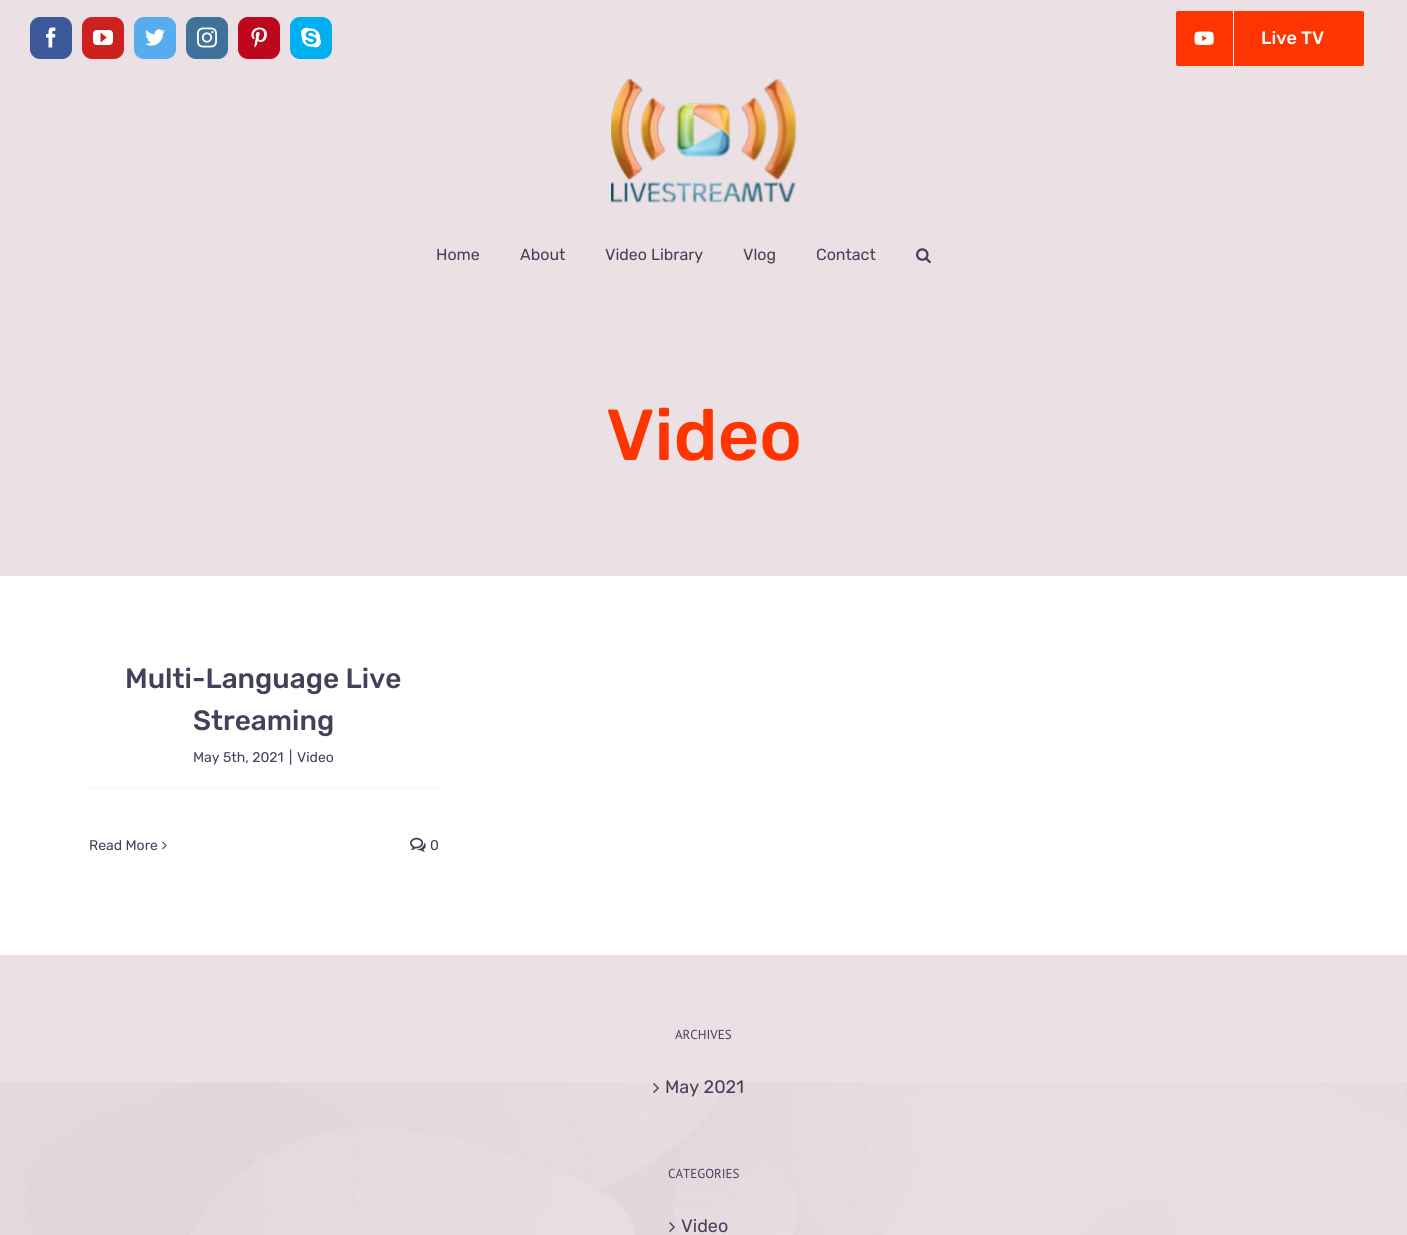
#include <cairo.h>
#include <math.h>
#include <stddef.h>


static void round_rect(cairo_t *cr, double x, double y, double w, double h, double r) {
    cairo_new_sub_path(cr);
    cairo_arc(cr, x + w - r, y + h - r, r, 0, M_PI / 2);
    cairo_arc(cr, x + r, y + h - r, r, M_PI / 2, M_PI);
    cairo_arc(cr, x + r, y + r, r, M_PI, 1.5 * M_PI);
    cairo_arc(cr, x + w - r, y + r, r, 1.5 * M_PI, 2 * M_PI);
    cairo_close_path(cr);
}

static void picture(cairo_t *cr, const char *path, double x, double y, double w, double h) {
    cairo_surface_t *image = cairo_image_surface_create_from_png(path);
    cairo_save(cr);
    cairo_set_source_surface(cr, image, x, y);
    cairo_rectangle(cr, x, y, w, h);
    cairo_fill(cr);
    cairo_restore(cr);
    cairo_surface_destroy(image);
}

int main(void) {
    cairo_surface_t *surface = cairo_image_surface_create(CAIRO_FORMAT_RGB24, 1407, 1235);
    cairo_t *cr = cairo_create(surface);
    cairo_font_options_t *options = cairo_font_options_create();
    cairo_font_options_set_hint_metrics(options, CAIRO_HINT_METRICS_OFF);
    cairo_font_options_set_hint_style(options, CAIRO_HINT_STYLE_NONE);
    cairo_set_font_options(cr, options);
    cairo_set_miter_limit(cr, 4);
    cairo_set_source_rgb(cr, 1, 1, 1);
    cairo_paint(cr);
    cairo_set_source_rgb(cr, 0.918, 0.882, 0.894);
    cairo_rectangle(cr, 0, 0, 1407, 215);
    cairo_fill(cr);
    cairo_set_source_rgb(cr, 0.231, 0.349, 0.596);
    round_rect(cr, 30.5, 17.5, 41, 41, 9.5);
    cairo_fill_preserve(cr);
    cairo_set_line_width(cr, 1);
    cairo_stroke(cr);
    picture(cr, "img1.png", 46, 27, 10, 21);
    cairo_set_source_rgb(cr, 0.804, 0.125, 0.122);
    round_rect(cr, 82.5, 17.5, 41, 41, 9.5);
    cairo_fill_preserve(cr);
    cairo_stroke(cr);
    picture(cr, "img2.png", 93, 30, 20, 15);
    cairo_set_source_rgb(cr, 0.333, 0.675, 0.933);
    round_rect(cr, 134.5, 17.5, 41, 41, 9.5);
    cairo_fill_preserve(cr);
    cairo_stroke(cr);
    picture(cr, "img3.png", 145, 29, 20, 17);
    cairo_set_source_rgb(cr, 0.247, 0.447, 0.608);
    round_rect(cr, 186.5, 17.5, 41, 41, 9.5);
    cairo_fill_preserve(cr);
    cairo_stroke(cr);
    picture(cr, "img4.png", 197, 27, 20, 21);
    cairo_set_source_rgb(cr, 0.741, 0.031, 0.11);
    round_rect(cr, 238.5, 17.5, 41, 41, 9.5);
    cairo_fill_preserve(cr);
    cairo_stroke(cr);
    picture(cr, "img5.png", 251, 27, 16, 21);
    cairo_set_source_rgb(cr, 0, 0.686, 0.941);
    round_rect(cr, 290.5, 17.5, 41, 41, 9.5);
    cairo_fill_preserve(cr);
    cairo_stroke(cr);
    picture(cr, "img6.png", 301, 27, 20, 21);
    cairo_set_source_rgb(cr, 1, 0.208, 0.004);
    round_rect(cr, 1176, 11, 188, 55, 2);
    cairo_fill(cr);
    cairo_set_source_rgb(cr, 1, 1, 1);
    cairo_rectangle(cr, 1233, 11, 1, 55);
    cairo_fill(cr);
    picture(cr, "img7.png", 1194, 31, 20, 14);
    cairo_select_font_face(cr, "Rubik Medium", CAIRO_FONT_SLANT_NORMAL, CAIRO_FONT_WEIGHT_NORMAL);
    cairo_set_font_size(cr, 18);
    cairo_move_to(cr, 1261, 44);
    cairo_show_text(cr, "Live TV");
    picture(cr, "img8.png", 611, 79, 186, 124);
    cairo_set_source_rgb(cr, 0.918, 0.882, 0.894);
    cairo_rectangle(cr, 0, 215, 1407, 361);
    cairo_fill(cr);
    cairo_select_font_face(cr, "Rubik", CAIRO_FONT_SLANT_NORMAL, CAIRO_FONT_WEIGHT_NORMAL);
    cairo_set_font_size(cr, 16);
    cairo_set_source_rgb(cr, 0.267, 0.251, 0.353);
    cairo_move_to(cr, 436, 260);
    cairo_show_text(cr, "Home");
    cairo_move_to(cr, 520, 260);
    cairo_show_text(cr, "About");
    cairo_move_to(cr, 605, 260);
    cairo_show_text(cr, "Video Library");
    cairo_move_to(cr, 743, 260);
    cairo_show_text(cr, "Vlog");
    cairo_move_to(cr, 816, 260);
    cairo_show_text(cr, "Contact");
    picture(cr, "img9.png", 916, 248, 15, 16);
    cairo_select_font_face(cr, "Rubik Medium", CAIRO_FONT_SLANT_NORMAL, CAIRO_FONT_WEIGHT_NORMAL);
    cairo_set_font_size(cr, 72);
    cairo_set_source_rgb(cr, 1, 0.208, 0.004);
    cairo_move_to(cr, 606, 460);
    cairo_show_text(cr, "Video");
    cairo_set_font_size(cr, 28);
    cairo_set_source_rgb(cr, 0.267, 0.251, 0.353);
    cairo_move_to(cr, 125, 688);
    cairo_show_text(cr, "Multi-Language Live");
    cairo_move_to(cr, 193, 730);
    cairo_show_text(cr, "Streaming");
    cairo_select_font_face(cr, "Rubik", CAIRO_FONT_SLANT_NORMAL, CAIRO_FONT_WEIGHT_NORMAL);
    cairo_set_font_size(cr, 14);
    cairo_move_to(cr, 193, 762);
    cairo_show_text(cr, "May 5th, 2021");
    cairo_move_to(cr, 289, 762);
    cairo_show_text(cr, "|");
    cairo_move_to(cr, 297, 762);
    cairo_show_text(cr, "Video");
    cairo_set_source_rgb(cr, 0.965, 0.957, 0.961);
    cairo_rectangle(cr, 89, 788, 350, 1);
    cairo_fill(cr);
    cairo_set_source_rgb(cr, 0.267, 0.251, 0.353);
    cairo_move_to(cr, 89, 850);
    cairo_show_text(cr, "Read More");
    picture(cr, "img10.png", 162, 841, 5, 9);
    picture(cr, "img11.png", 410, 837, 16, 15);
    cairo_move_to(cr, 430, 850);
    cairo_show_text(cr, "0");
    cairo_set_source_rgb(cr, 0.918, 0.882, 0.894);
    cairo_rectangle(cr, 0, 955, 1407, 127);
    cairo_fill(cr);
    picture(cr, "img12.png", 0, 1082, 1407, 153);
    cairo_select_font_face(cr, "PT Sans", CAIRO_FONT_SLANT_NORMAL, CAIRO_FONT_WEIGHT_NORMAL);
    cairo_set_font_size(cr, 13);
    cairo_set_source_rgb(cr, 0.267, 0.251, 0.353);
    cairo_move_to(cr, 675, 1039);
    cairo_show_text(cr, "ARCHIVES");
    picture(cr, "img13.png", 653, 1083, 6, 10);
    cairo_select_font_face(cr, "Rubik", CAIRO_FONT_SLANT_NORMAL, CAIRO_FONT_WEIGHT_NORMAL);
    cairo_set_font_size(cr, 18);
    cairo_move_to(cr, 665, 1093);
    cairo_show_text(cr, "May 2021");
    cairo_select_font_face(cr, "PT Sans", CAIRO_FONT_SLANT_NORMAL, CAIRO_FONT_WEIGHT_NORMAL);
    cairo_set_font_size(cr, 13);
    cairo_move_to(cr, 668, 1178);
    cairo_show_text(cr, "CATEGORIES");
    picture(cr, "img14.png", 669, 1222, 6, 10);
    cairo_select_font_face(cr, "Rubik", CAIRO_FONT_SLANT_NORMAL, CAIRO_FONT_WEIGHT_NORMAL);
    cairo_set_font_size(cr, 18);
    cairo_move_to(cr, 681, 1232);
    cairo_show_text(cr, "Video");
    cairo_surface_write_to_png(surface, "page.png");
    cairo_font_options_destroy(options);
    cairo_destroy(cr);
    cairo_surface_destroy(surface);
    return 0;
}
